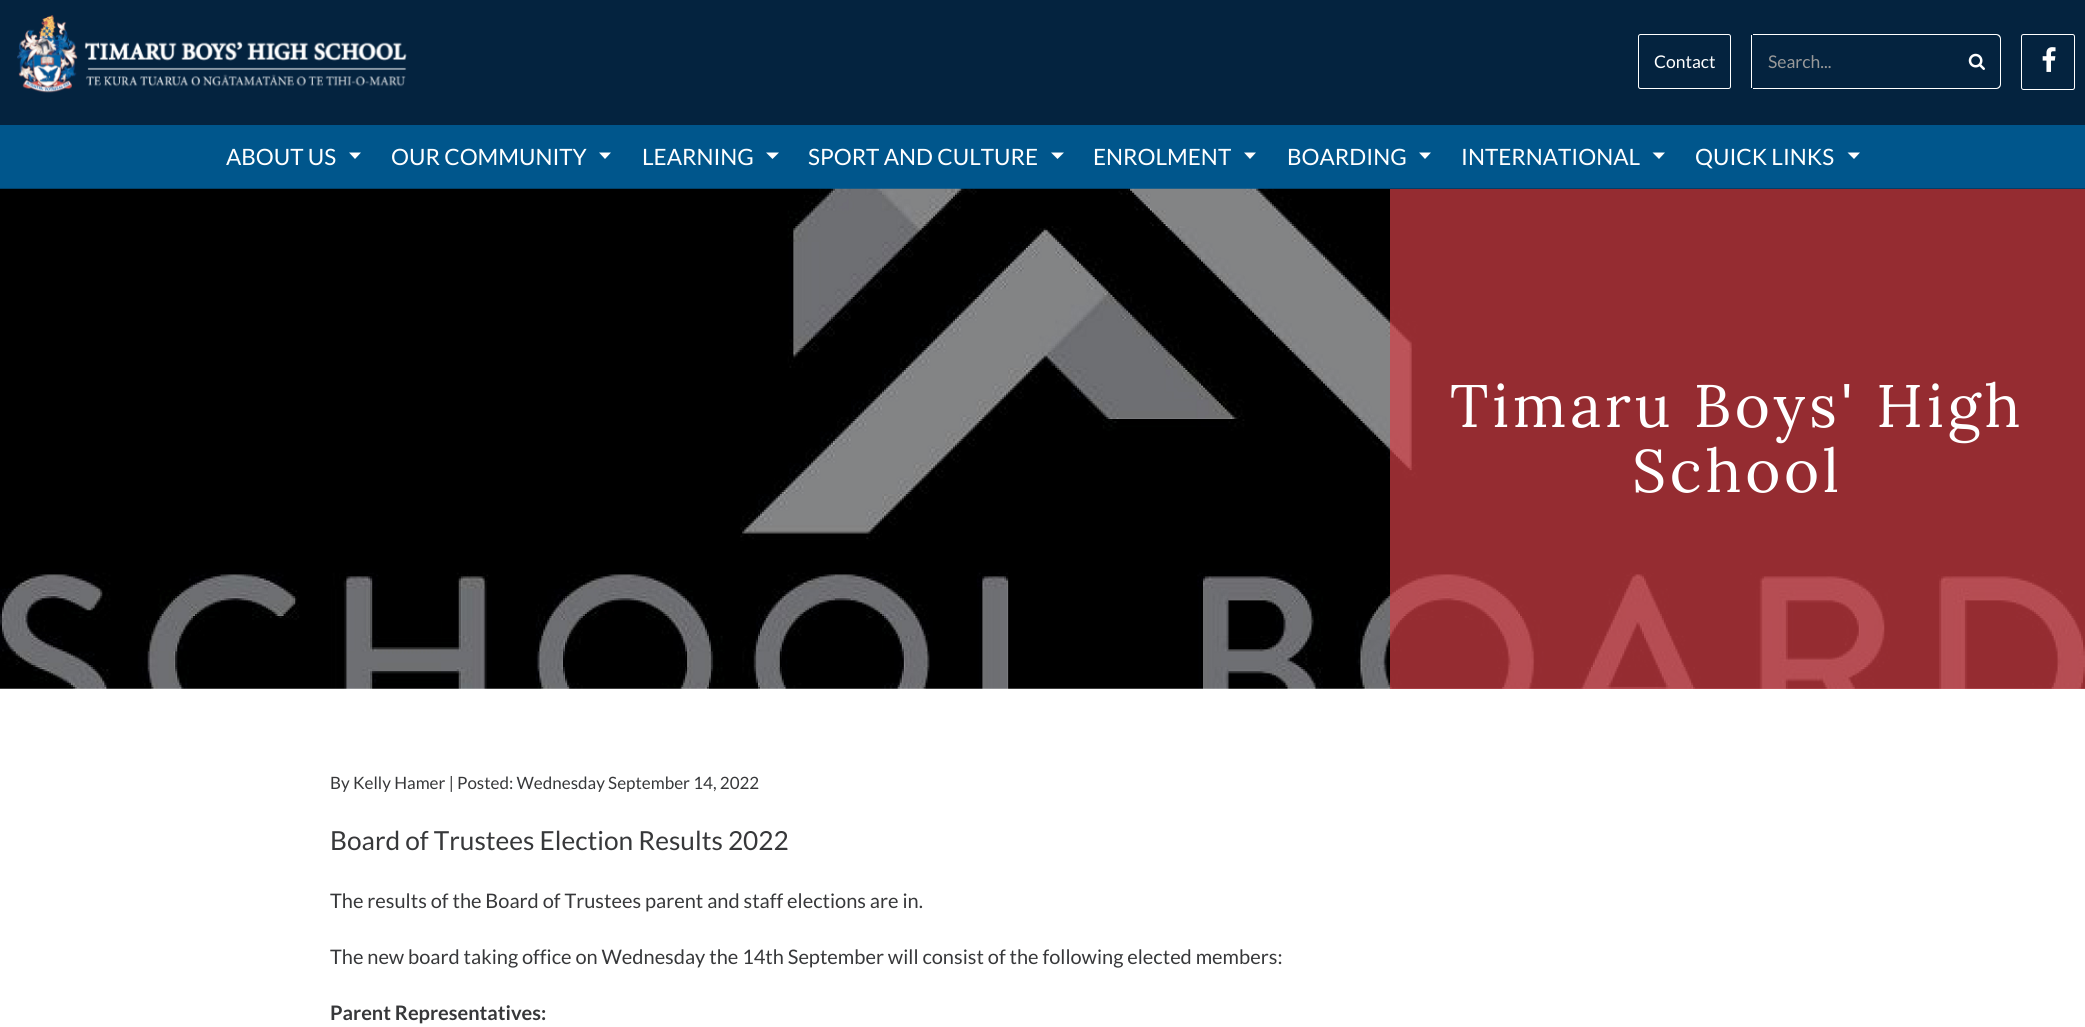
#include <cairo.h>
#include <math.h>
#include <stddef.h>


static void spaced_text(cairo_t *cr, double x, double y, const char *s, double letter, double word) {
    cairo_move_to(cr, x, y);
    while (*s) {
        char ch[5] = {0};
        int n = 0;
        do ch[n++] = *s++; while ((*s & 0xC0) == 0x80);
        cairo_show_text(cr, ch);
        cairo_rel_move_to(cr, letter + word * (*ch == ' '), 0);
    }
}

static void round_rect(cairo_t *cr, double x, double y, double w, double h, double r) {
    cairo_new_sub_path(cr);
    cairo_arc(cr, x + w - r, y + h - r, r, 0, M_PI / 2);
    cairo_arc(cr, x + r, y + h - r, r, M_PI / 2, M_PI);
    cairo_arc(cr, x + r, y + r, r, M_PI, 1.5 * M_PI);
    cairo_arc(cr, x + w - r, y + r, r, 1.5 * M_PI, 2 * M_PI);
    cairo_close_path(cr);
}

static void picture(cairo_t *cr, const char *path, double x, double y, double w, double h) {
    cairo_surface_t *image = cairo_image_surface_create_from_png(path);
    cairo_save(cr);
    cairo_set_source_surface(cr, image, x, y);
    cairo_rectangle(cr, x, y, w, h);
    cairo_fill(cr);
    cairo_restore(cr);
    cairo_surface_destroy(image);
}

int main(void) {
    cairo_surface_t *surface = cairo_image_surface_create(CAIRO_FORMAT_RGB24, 2085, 1027);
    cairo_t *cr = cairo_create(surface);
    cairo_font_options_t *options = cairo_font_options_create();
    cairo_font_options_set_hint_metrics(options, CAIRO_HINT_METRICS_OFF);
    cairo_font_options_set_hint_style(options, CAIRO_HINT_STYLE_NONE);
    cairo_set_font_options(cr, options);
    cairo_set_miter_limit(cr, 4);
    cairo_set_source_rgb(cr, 1, 1, 1);
    cairo_paint(cr);
    cairo_set_source_rgb(cr, 0.016, 0.137, 0.247);
    cairo_rectangle(cr, 0, 0, 2085, 125);
    cairo_fill(cr);
    picture(cr, "img1.png", 17, 15, 390, 78);
    round_rect(cr, 1638.5, 34.5, 92, 54, 2);
    cairo_set_source_rgb(cr, 1, 1, 1);
    cairo_set_line_width(cr, 1);
    cairo_stroke(cr);
    cairo_select_font_face(cr, "Lato", CAIRO_FONT_SLANT_NORMAL, CAIRO_FONT_WEIGHT_NORMAL);
    cairo_set_font_size(cr, 17.5);
    cairo_move_to(cr, 1654, 68);
    cairo_show_text(cr, "Contact");
    cairo_rectangle(cr, 1753, 34, 201, 1);
    cairo_fill(cr);
    cairo_rectangle(cr, 1753, 88, 201, 1);
    cairo_fill(cr);
    cairo_rectangle(cr, 1751, 35, 1, 53);
    cairo_fill(cr);
    cairo_set_source_rgb(cr, 0.6, 0.6, 0.6);
    cairo_move_to(cr, 1768, 68);
    cairo_show_text(cr, "Search...");
    cairo_set_source_rgb(cr, 1, 1, 1);
    cairo_set_fill_rule(cr, CAIRO_FILL_RULE_EVEN_ODD);
    cairo_new_path(cr);
    cairo_move_to(cr, 1954, 34);
    cairo_line_to(cr, 1996, 34);
    cairo_curve_to(cr, 1999, 34, 2001, 36, 2001, 39);
    cairo_line_to(cr, 2001, 84);
    cairo_curve_to(cr, 2001, 87, 1999, 89, 1996, 89);
    cairo_line_to(cr, 1954, 89);
    cairo_close_path(cr);
    cairo_move_to(cr, 1954, 35);
    cairo_line_to(cr, 1996, 35);
    cairo_curve_to(cr, 1998, 35, 2000, 37, 2000, 39);
    cairo_line_to(cr, 2000, 84);
    cairo_curve_to(cr, 2000, 86, 1998, 88, 1996, 88);
    cairo_line_to(cr, 1954, 88);
    cairo_close_path(cr);
    cairo_fill(cr);
    picture(cr, "img2.png", 1968, 53, 17, 17);
    round_rect(cr, 2021.5, 34.5, 53, 55, 2);
    cairo_stroke(cr);
    picture(cr, "img3.png", 2042, 47, 14, 25);
    cairo_set_source_rgb(cr, 0, 0.337, 0.549);
    cairo_rectangle(cr, 0, 125, 2085, 64);
    cairo_fill(cr);
    cairo_set_font_size(cr, 22.5);
    cairo_set_source_rgb(cr, 1, 1, 1);
    cairo_move_to(cr, 226, 165);
    cairo_show_text(cr, "ABOUT US");
    cairo_set_fill_rule(cr, CAIRO_FILL_RULE_WINDING);
    cairo_new_path(cr);
    cairo_move_to(cr, 349, 152.5);
    cairo_line_to(cr, 361, 152.5);
    cairo_line_to(cr, 355, 159);
    cairo_close_path(cr);
    cairo_fill(cr);
    cairo_move_to(cr, 391, 165);
    cairo_show_text(cr, "OUR COMMUNITY");
    cairo_new_path(cr);
    cairo_move_to(cr, 599, 152.5);
    cairo_line_to(cr, 611, 152.5);
    cairo_line_to(cr, 605, 159);
    cairo_close_path(cr);
    cairo_fill(cr);
    cairo_move_to(cr, 642, 165);
    cairo_show_text(cr, "LEARNING");
    cairo_new_path(cr);
    cairo_move_to(cr, 766, 152.5);
    cairo_line_to(cr, 779, 152.5);
    cairo_line_to(cr, 772.5, 159);
    cairo_close_path(cr);
    cairo_fill(cr);
    cairo_move_to(cr, 808, 165);
    cairo_show_text(cr, "SPORT AND CULTURE");
    cairo_new_path(cr);
    cairo_move_to(cr, 1051, 152.5);
    cairo_line_to(cr, 1064, 152.5);
    cairo_line_to(cr, 1057.5, 159);
    cairo_close_path(cr);
    cairo_fill(cr);
    cairo_move_to(cr, 1093, 165);
    cairo_show_text(cr, "ENROLMENT");
    cairo_new_path(cr);
    cairo_move_to(cr, 1244, 152.5);
    cairo_line_to(cr, 1256, 152.5);
    cairo_line_to(cr, 1250, 159);
    cairo_close_path(cr);
    cairo_fill(cr);
    cairo_move_to(cr, 1287, 165);
    cairo_show_text(cr, "BOARDING");
    cairo_new_path(cr);
    cairo_move_to(cr, 1419, 152.5);
    cairo_line_to(cr, 1431, 152.5);
    cairo_line_to(cr, 1425, 159);
    cairo_close_path(cr);
    cairo_fill(cr);
    cairo_move_to(cr, 1461, 165);
    cairo_show_text(cr, "INTERNATIONAL");
    cairo_new_path(cr);
    cairo_move_to(cr, 1652.5, 152.5);
    cairo_line_to(cr, 1665, 152.5);
    cairo_line_to(cr, 1659, 159);
    cairo_close_path(cr);
    cairo_fill(cr);
    cairo_move_to(cr, 1695, 165);
    cairo_show_text(cr, "QUICK LINKS");
    cairo_new_path(cr);
    cairo_move_to(cr, 1847.5, 152.5);
    cairo_line_to(cr, 1860, 152.5);
    cairo_line_to(cr, 1854, 159);
    cairo_close_path(cr);
    cairo_fill(cr);
    picture(cr, "img4.png", 0, 188, 2085, 501);
    cairo_set_source_rgba(cr, 0.835, 0.247, 0.275, 0.7);
    cairo_rectangle(cr, 1390, 189, 695, 500);
    cairo_fill(cr);
    cairo_select_font_face(cr, "Lora", CAIRO_FONT_SLANT_NORMAL, CAIRO_FONT_WEIGHT_NORMAL);
    cairo_set_font_size(cr, 60);
    cairo_set_source_rgb(cr, 1, 1, 1);
    spaced_text(cr, 1450, 427, "Timaru Boys' High", 3.75, 0);
    spaced_text(cr, 1632, 492, "School", 3.75, 0);
    cairo_select_font_face(cr, "Lato", CAIRO_FONT_SLANT_NORMAL, CAIRO_FONT_WEIGHT_NORMAL);
    cairo_set_font_size(cr, 17);
    cairo_set_source_rgb(cr, 0.216, 0.22, 0.227);
    cairo_move_to(cr, 330, 789);
    cairo_show_text(cr, "By Kelly Hamer | Posted: Wednesday September 14, 2022");
    cairo_set_font_size(cr, 26.25);
    cairo_move_to(cr, 330, 850);
    cairo_show_text(cr, "Board of Trustees Election Results 2022");
    cairo_set_font_size(cr, 20);
    cairo_move_to(cr, 330, 908);
    cairo_show_text(cr, "The results of the Board of Trustees parent and staff elections are in.");
    cairo_move_to(cr, 330, 964);
    cairo_show_text(cr, "The new board taking office on Wednesday the 14th September will consist of the following elected members:");
    cairo_select_font_face(cr, "Lato", CAIRO_FONT_SLANT_NORMAL, CAIRO_FONT_WEIGHT_BOLD);
    cairo_move_to(cr, 330, 1020);
    cairo_show_text(cr, "Parent Representatives:");
    cairo_surface_write_to_png(surface, "page.png");
    cairo_font_options_destroy(options);
    cairo_destroy(cr);
    cairo_surface_destroy(surface);
    return 0;
}
